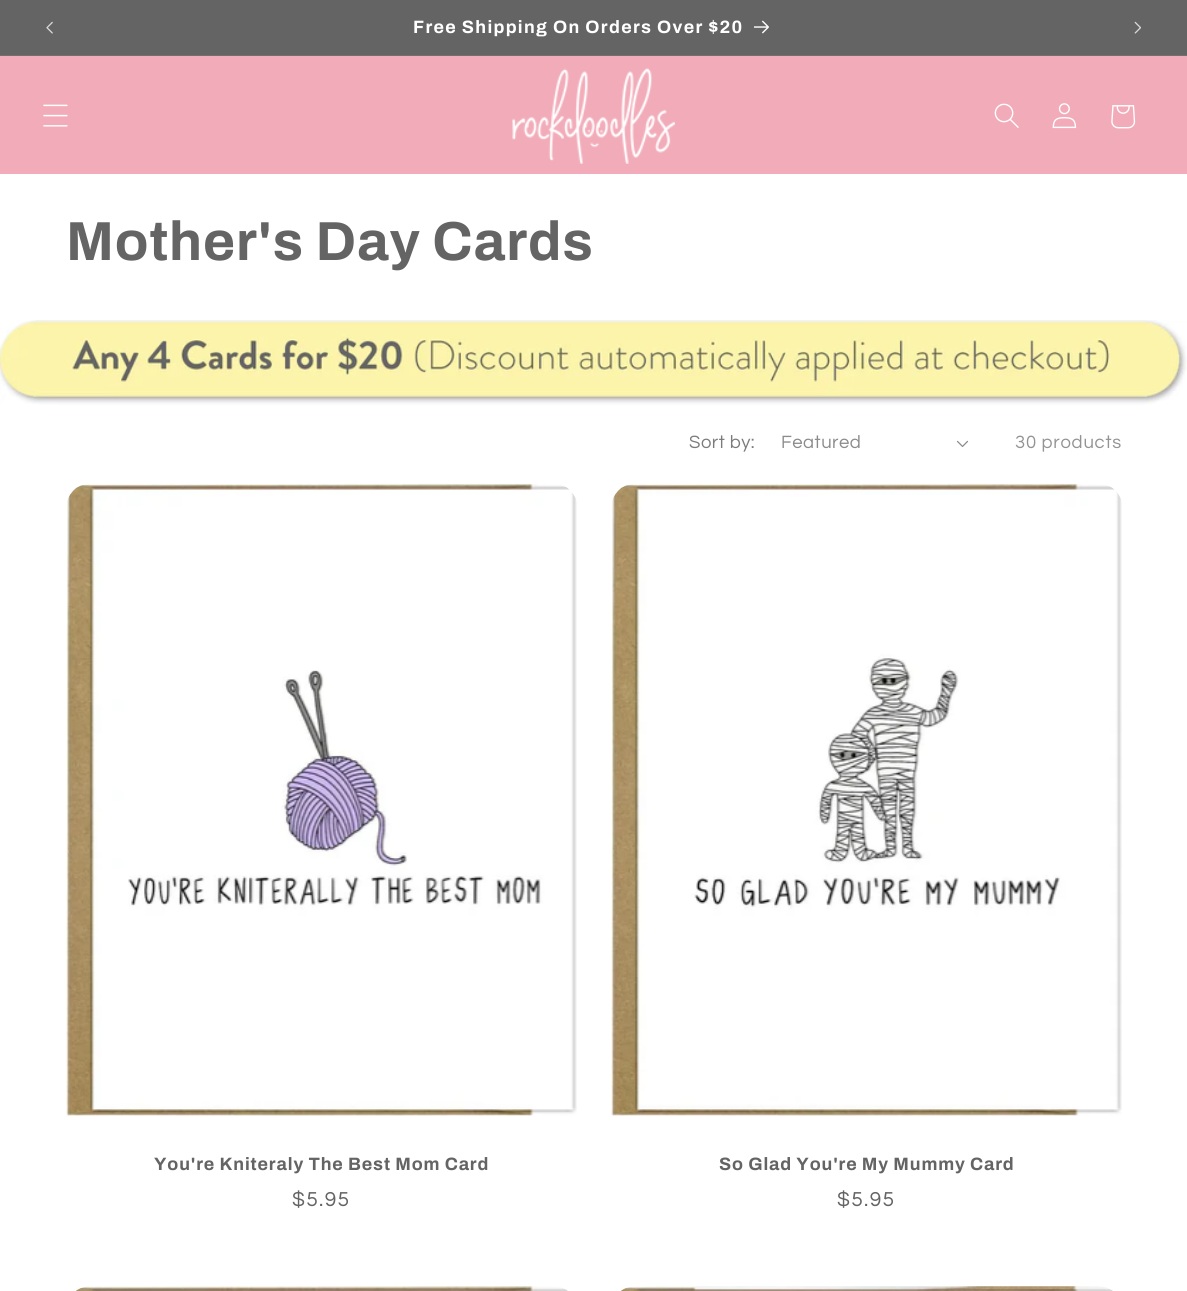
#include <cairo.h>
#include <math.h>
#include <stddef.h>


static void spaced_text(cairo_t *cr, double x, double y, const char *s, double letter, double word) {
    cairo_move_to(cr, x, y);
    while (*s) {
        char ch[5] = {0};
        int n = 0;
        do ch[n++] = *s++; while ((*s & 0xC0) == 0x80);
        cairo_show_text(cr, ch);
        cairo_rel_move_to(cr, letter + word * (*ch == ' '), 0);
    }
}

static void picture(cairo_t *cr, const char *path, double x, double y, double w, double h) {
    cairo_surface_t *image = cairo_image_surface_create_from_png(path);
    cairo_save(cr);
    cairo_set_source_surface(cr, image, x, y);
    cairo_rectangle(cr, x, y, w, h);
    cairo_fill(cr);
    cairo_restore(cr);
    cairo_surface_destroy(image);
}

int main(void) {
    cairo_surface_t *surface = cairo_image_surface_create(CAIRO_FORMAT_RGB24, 1187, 1291);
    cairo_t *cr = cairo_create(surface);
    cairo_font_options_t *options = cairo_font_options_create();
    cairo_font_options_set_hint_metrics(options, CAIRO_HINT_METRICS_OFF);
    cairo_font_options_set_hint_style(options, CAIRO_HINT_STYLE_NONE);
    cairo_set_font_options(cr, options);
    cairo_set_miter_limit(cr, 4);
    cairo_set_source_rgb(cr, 1, 1, 1);
    cairo_paint(cr);
    cairo_set_source_rgb(cr, 0.392, 0.392, 0.392);
    cairo_rectangle(cr, 0, 0, 1187, 55);
    cairo_fill(cr);
    cairo_set_source_rgb(cr, 0.439, 0.439, 0.439);
    cairo_rectangle(cr, 0, 55, 1187, 1);
    cairo_fill(cr);
    picture(cr, "img1.png", 46, 21, 7, 13);
    cairo_select_font_face(cr, "Archivo", CAIRO_FONT_SLANT_NORMAL, CAIRO_FONT_WEIGHT_BOLD);
    cairo_set_font_size(cr, 17.9);
    cairo_set_source_rgb(cr, 1, 1, 1);
    spaced_text(cr, 413, 33, "Free Shipping On Orders Over $20", 1.3, 0);
    picture(cr, "img2.png", 754, 20, 15, 14);
    picture(cr, "img3.png", 1134, 21, 8, 13);
    cairo_set_source_rgb(cr, 0.949, 0.675, 0.725);
    cairo_rectangle(cr, 0, 56, 1187, 118);
    cairo_fill(cr);
    picture(cr, "img4.png", 43, 104, 25, 23);
    picture(cr, "img5.png", 512, 68, 163, 96);
    picture(cr, "img6.png", 994, 103, 25, 25);
    picture(cr, "img7.png", 1052, 103, 25, 26);
    picture(cr, "img8.png", 1111, 105, 25, 24);
    cairo_set_font_size(cr, 55);
    cairo_set_source_rgb(cr, 0.392, 0.392, 0.392);
    spaced_text(cr, 66, 260, "Mother's Day Cards", 0.85, 0);
    picture(cr, "img9.png", 0, 320, 1187, 85);
    cairo_select_font_face(cr, "Questrial", CAIRO_FONT_SLANT_NORMAL, CAIRO_FONT_WEIGHT_NORMAL);
    cairo_set_font_size(cr, 18.5);
    cairo_set_source_rgb(cr, 0.482, 0.482, 0.482);
    spaced_text(cr, 689, 448, "Sort by:", 0.5, 0);
    cairo_set_source_rgb(cr, 0.545, 0.545, 0.545);
    spaced_text(cr, 781, 448, "Featured", 0.5, 0);
    picture(cr, "img10.png", 956, 440, 13, 7);
    cairo_set_source_rgb(cr, 0.576, 0.576, 0.576);
    spaced_text(cr, 1015, 448, "30 products", 0.75, 0);
    picture(cr, "img11.png", 66, 483, 511, 633);
    cairo_select_font_face(cr, "Archivo", CAIRO_FONT_SLANT_NORMAL, CAIRO_FONT_WEIGHT_BOLD);
    cairo_set_font_size(cr, 17.9);
    cairo_set_source_rgb(cr, 0.392, 0.392, 0.392);
    spaced_text(cr, 154, 1170, "You're Kniteraly The Best Mom Card", 0.85, 0);
    cairo_select_font_face(cr, "Questrial", CAIRO_FONT_SLANT_NORMAL, CAIRO_FONT_WEIGHT_NORMAL);
    cairo_set_font_size(cr, 21);
    spaced_text(cr, 292, 1206, "$5.95", 1.3, 0);
    picture(cr, "img12.png", 611, 483, 511, 633);
    cairo_select_font_face(cr, "Archivo", CAIRO_FONT_SLANT_NORMAL, CAIRO_FONT_WEIGHT_BOLD);
    cairo_set_font_size(cr, 17.9);
    spaced_text(cr, 719, 1170, "So Glad You're My Mummy Card", 0.85, 0);
    cairo_select_font_face(cr, "Questrial", CAIRO_FONT_SLANT_NORMAL, CAIRO_FONT_WEIGHT_NORMAL);
    cairo_set_font_size(cr, 21);
    spaced_text(cr, 837, 1206, "$5.95", 1.3, 0);
    picture(cr, "img13.png", 76, 1286, 492, 5);
    picture(cr, "img14.png", 621, 1286, 492, 5);
    cairo_surface_write_to_png(surface, "page.png");
    cairo_font_options_destroy(options);
    cairo_destroy(cr);
    cairo_surface_destroy(surface);
    return 0;
}
